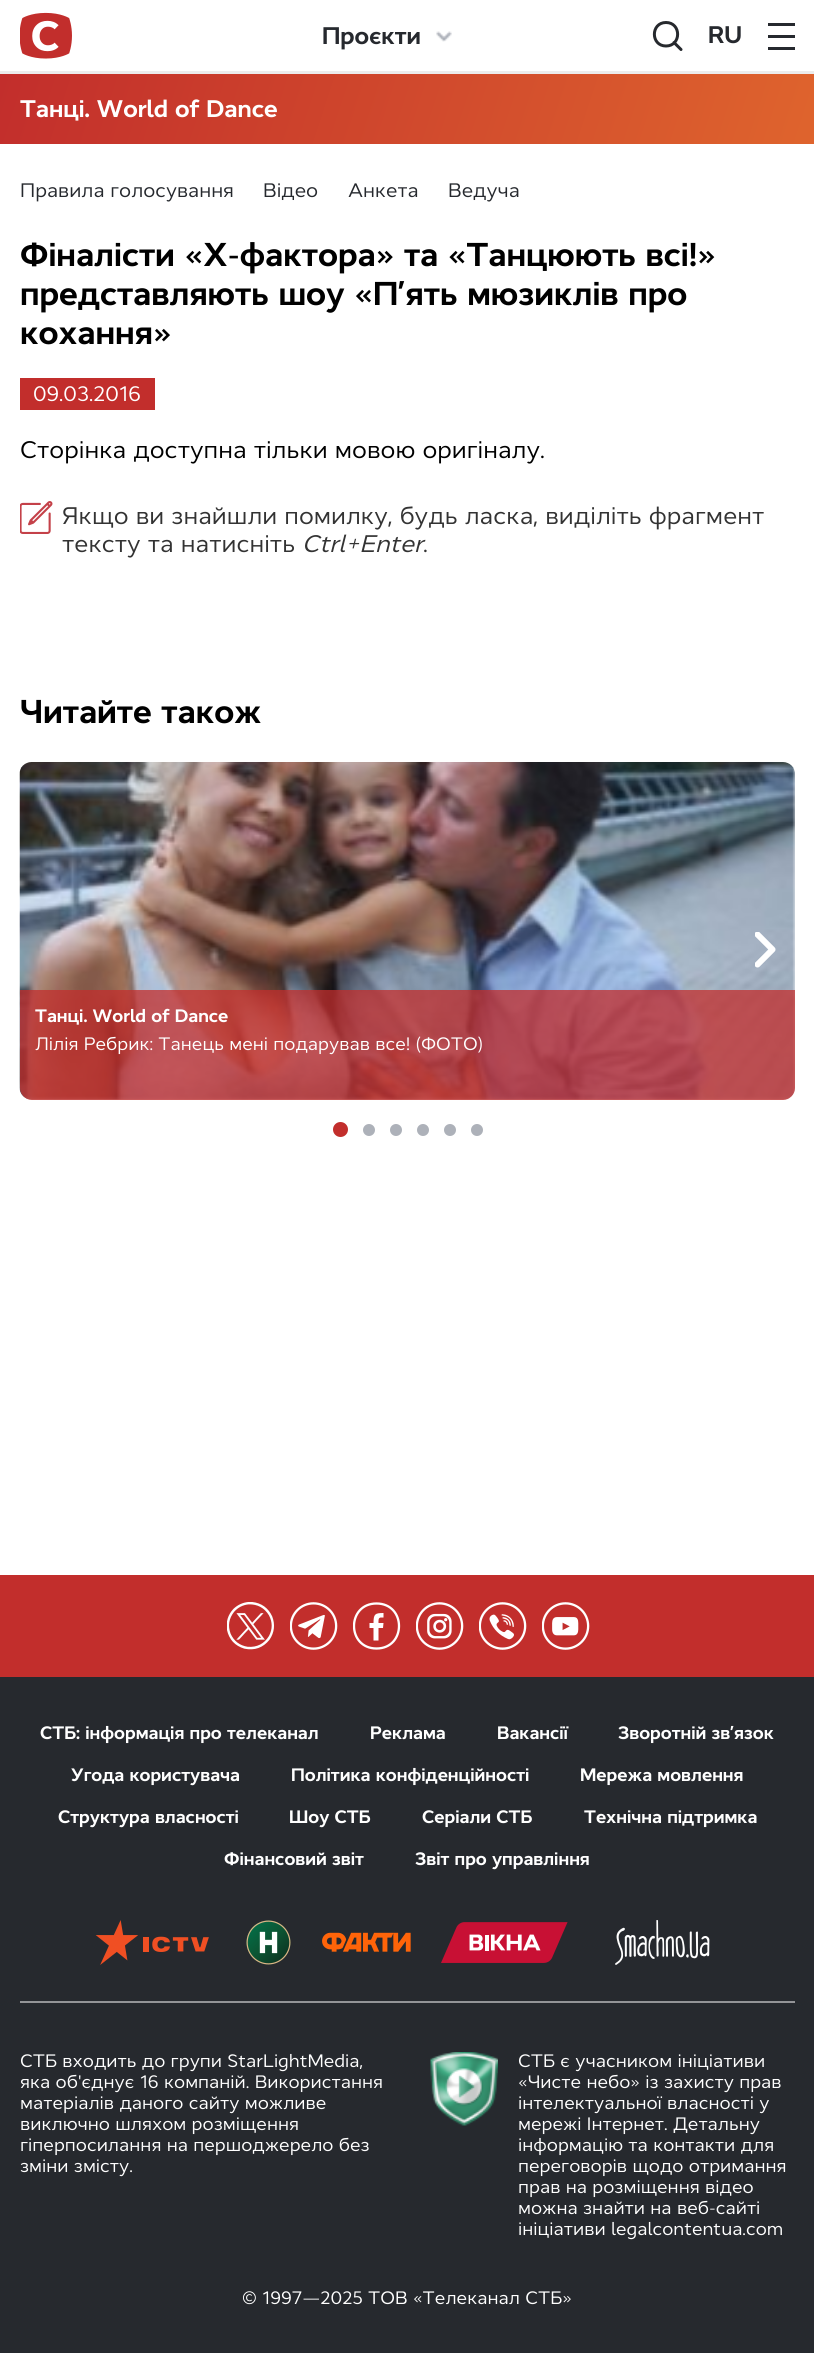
#include <cairo.h>
#include <math.h>
#include <stddef.h>


static void picture(cairo_t *cr, const char *path, double x, double y, double w, double h) {
    cairo_surface_t *image = cairo_image_surface_create_from_png(path);
    cairo_save(cr);
    cairo_set_source_surface(cr, image, x, y);
    cairo_rectangle(cr, x, y, w, h);
    cairo_fill(cr);
    cairo_restore(cr);
    cairo_surface_destroy(image);
}

int main(void) {
    cairo_surface_t *surface = cairo_image_surface_create(CAIRO_FORMAT_RGB24, 814, 2353);
    cairo_t *cr = cairo_create(surface);
    cairo_font_options_t *options = cairo_font_options_create();
    cairo_font_options_set_hint_metrics(options, CAIRO_HINT_METRICS_OFF);
    cairo_font_options_set_hint_style(options, CAIRO_HINT_STYLE_NONE);
    cairo_set_font_options(cr, options);
    cairo_set_miter_limit(cr, 4);
    cairo_pattern_t *gradient;
    cairo_set_source_rgb(cr, 1, 1, 1);
    cairo_paint(cr);
    cairo_set_source_rgb(cr, 0.922, 0.922, 0.922);
    cairo_rectangle(cr, 0, 71, 814, 3);
    cairo_fill(cr);
    picture(cr, "img1.png", 20, 12, 52, 47);
    cairo_select_font_face(cr, "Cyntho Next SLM", CAIRO_FONT_SLANT_NORMAL, CAIRO_FONT_WEIGHT_BOLD);
    cairo_set_font_size(cr, 24);
    cairo_set_source_rgb(cr, 0.149, 0.161, 0.18);
    cairo_move_to(cr, 322, 44);
    cairo_show_text(cr, "Проєкти");
    picture(cr, "img2.png", 436, 31, 16, 11);
    cairo_new_path(cr);
    cairo_move_to(cr, 666, 46);
    cairo_curve_to(cr, 681.5, 46, 681.5, 22.5, 666, 22.5);
    cairo_curve_to(cr, 650.5, 22.5, 650.5, 46, 666, 46);
    cairo_close_path(cr);
    cairo_move_to(cr, 674, 42.5);
    cairo_line_to(cr, 681, 49.5);
    cairo_set_line_width(cr, 3);
    cairo_set_line_cap(cr, CAIRO_LINE_CAP_ROUND);
    cairo_set_line_join(cr, CAIRO_LINE_JOIN_ROUND);
    cairo_stroke(cr);
    cairo_move_to(cr, 708, 43);
    cairo_show_text(cr, "RU");
    cairo_rectangle(cr, 768, 23, 27, 3);
    cairo_fill(cr);
    cairo_rectangle(cr, 768, 35, 27, 3);
    cairo_fill(cr);
    cairo_rectangle(cr, 768, 47, 27, 3);
    cairo_fill(cr);
    gradient = cairo_pattern_create_linear(29, -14, 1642, 510);
    cairo_pattern_add_color_stop_rgba(gradient, 0, 0.761, 0.18, 0.173, 1);
    cairo_pattern_add_color_stop_rgba(gradient, 1, 1, 0.631, 0.18, 1);
    cairo_set_source(cr, gradient);
    cairo_pattern_destroy(gradient);
    cairo_rectangle(cr, 0, 74, 814, 70);
    cairo_fill(cr);
    cairo_set_source_rgb(cr, 1, 1, 1);
    cairo_move_to(cr, 20, 117);
    cairo_show_text(cr, "Танці. World of Dance");
    cairo_select_font_face(cr, "Cyntho Next SLM", CAIRO_FONT_SLANT_NORMAL, CAIRO_FONT_WEIGHT_NORMAL);
    cairo_set_font_size(cr, 19.5);
    cairo_set_source_rgb(cr, 0.149, 0.161, 0.18);
    cairo_move_to(cr, 20, 197);
    cairo_show_text(cr, "Правила голосування");
    cairo_move_to(cr, 263, 197);
    cairo_show_text(cr, "Відео");
    cairo_move_to(cr, 348, 197);
    cairo_show_text(cr, "Анкета");
    cairo_move_to(cr, 448, 197);
    cairo_show_text(cr, "Ведуча");
    cairo_select_font_face(cr, "Cyntho Next SLM", CAIRO_FONT_SLANT_NORMAL, CAIRO_FONT_WEIGHT_BOLD);
    cairo_set_font_size(cr, 33);
    cairo_set_source_rgb(cr, 0, 0, 0);
    cairo_move_to(cr, 20, 266);
    cairo_show_text(cr, "Фіналісти «X-фактора» та «Танцюють всі!»");
    cairo_move_to(cr, 20, 305);
    cairo_show_text(cr, "представляють шоу «П’ять мюзиклів про");
    cairo_move_to(cr, 20, 344);
    cairo_show_text(cr, "кохання»");
    cairo_set_source_rgb(cr, 0.761, 0.18, 0.173);
    cairo_rectangle(cr, 20, 378, 135, 32);
    cairo_fill(cr);
    cairo_select_font_face(cr, "Cyntho Next SLM", CAIRO_FONT_SLANT_NORMAL, CAIRO_FONT_WEIGHT_NORMAL);
    cairo_set_font_size(cr, 21);
    cairo_set_source_rgb(cr, 1, 1, 1);
    cairo_move_to(cr, 33, 401);
    cairo_show_text(cr, "09.03.2016");
    cairo_set_font_size(cr, 24);
    cairo_set_source_rgb(cr, 0, 0, 0);
    cairo_move_to(cr, 20, 458);
    cairo_show_text(cr, "Сторінка доступна тільки мовою оригіналу.");
    picture(cr, "img3.png", 20, 501, 33, 33);
    cairo_set_source_rgb(cr, 0.2, 0.2, 0.2);
    cairo_move_to(cr, 62, 524);
    cairo_show_text(cr, "Якщо ви знайшли помилку, будь ласка, виділіть фрагмент");
    cairo_move_to(cr, 62, 552);
    cairo_show_text(cr, "тексту та натисніть");
    cairo_select_font_face(cr, "Cyntho Next SLM", CAIRO_FONT_SLANT_ITALIC, CAIRO_FONT_WEIGHT_NORMAL);
    cairo_move_to(cr, 302, 552);
    cairo_show_text(cr, "Ctrl+Enter");
    cairo_select_font_face(cr, "Cyntho Next SLM", CAIRO_FONT_SLANT_NORMAL, CAIRO_FONT_WEIGHT_NORMAL);
    cairo_move_to(cr, 423, 552);
    cairo_show_text(cr, ".");
    cairo_select_font_face(cr, "Cyntho Next SLM", CAIRO_FONT_SLANT_NORMAL, CAIRO_FONT_WEIGHT_BOLD);
    cairo_set_font_size(cr, 33);
    cairo_set_source_rgb(cr, 0, 0, 0);
    cairo_move_to(cr, 20, 723);
    cairo_show_text(cr, "Читайте також");
    picture(cr, "img4.png", 19, 762, 776, 338);
    cairo_save(cr);
    cairo_rectangle(cr, 755, 932, 21, 36);
    cairo_clip(cr);
    cairo_new_path(cr);
    cairo_move_to(cr, 757.5, 934.5);
    cairo_line_to(cr, 772.5, 949.5);
    cairo_line_to(cr, 757.5, 964.5);
    cairo_set_source_rgb(cr, 1, 1, 1);
    cairo_set_line_width(cr, 6);
    cairo_stroke(cr);
    cairo_restore(cr);
    cairo_set_source_rgba(cr, 0.761, 0.18, 0.173, 0.75);
    cairo_new_path(cr);
    cairo_move_to(cr, 20, 990);
    cairo_line_to(cr, 795, 990);
    cairo_line_to(cr, 795, 1088);
    cairo_curve_to(cr, 795, 1094.5, 789.5, 1100, 783, 1100);
    cairo_line_to(cr, 32, 1100);
    cairo_curve_to(cr, 25.5, 1100, 20, 1094.5, 20, 1088);
    cairo_close_path(cr);
    cairo_fill(cr);
    cairo_set_font_size(cr, 18);
    cairo_set_source_rgb(cr, 1, 1, 1);
    cairo_move_to(cr, 35, 1022);
    cairo_show_text(cr, "Танці. World of Dance");
    cairo_select_font_face(cr, "Cyntho Next SLM", CAIRO_FONT_SLANT_NORMAL, CAIRO_FONT_WEIGHT_NORMAL);
    cairo_move_to(cr, 35, 1050);
    cairo_show_text(cr, "Лілія Ребрик: Танець мені подарував все! (ФОТО)");
    cairo_set_source_rgb(cr, 0.761, 0.18, 0.173);
    cairo_new_path(cr);
    cairo_arc(cr, 340.5, 1129.5, 7.5, 0, 2 * M_PI);
    cairo_fill(cr);
    cairo_set_source_rgb(cr, 0.678, 0.694, 0.725);
    cairo_arc(cr, 369, 1130, 6, 0, 2 * M_PI);
    cairo_fill(cr);
    cairo_arc(cr, 396, 1130, 6, 0, 2 * M_PI);
    cairo_fill(cr);
    cairo_arc(cr, 423, 1130, 6, 0, 2 * M_PI);
    cairo_fill(cr);
    cairo_arc(cr, 450, 1130, 6, 0, 2 * M_PI);
    cairo_fill(cr);
    cairo_arc(cr, 477, 1130, 6, 0, 2 * M_PI);
    cairo_fill(cr);
    cairo_set_source_rgb(cr, 0.761, 0.18, 0.173);
    cairo_rectangle(cr, 0, 1575, 814, 102);
    cairo_fill(cr);
    picture(cr, "img5.png", 227, 1602, 47, 48);
    picture(cr, "img6.png", 290, 1602, 48, 48);
    cairo_save(cr);
    cairo_rectangle(cr, 353, 1602, 48, 48);
    cairo_clip(cr);
    cairo_new_path(cr);
    cairo_move_to(cr, 376.5, 1648.5);
    cairo_curve_to(cr, 406.5, 1648.5, 406.5, 1603.5, 376.5, 1603.5);
    cairo_curve_to(cr, 346.5, 1603.5, 346.5, 1648.5, 376.5, 1648.5);
    cairo_close_path(cr);
    cairo_set_source_rgb(cr, 1, 1, 1);
    cairo_set_line_width(cr, 2.3);
    cairo_set_line_cap(cr, CAIRO_LINE_CAP_BUTT);
    cairo_set_line_join(cr, CAIRO_LINE_JOIN_MITER);
    cairo_stroke(cr);
    cairo_restore(cr);
    cairo_set_source_rgb(cr, 1, 1, 1);
    cairo_new_path(cr);
    cairo_move_to(cr, 381, 1617.5);
    cairo_line_to(cr, 383.5, 1617.5);
    cairo_line_to(cr, 383.5, 1613);
    cairo_curve_to(cr, 375, 1613, 373.5, 1614, 373.5, 1623);
    cairo_line_to(cr, 369.5, 1623);
    cairo_line_to(cr, 369.5, 1628);
    cairo_line_to(cr, 373.5, 1628);
    cairo_line_to(cr, 373.5, 1640.5);
    cairo_line_to(cr, 378.5, 1640.5);
    cairo_line_to(cr, 378.5, 1628);
    cairo_line_to(cr, 383, 1628);
    cairo_line_to(cr, 383.5, 1623);
    cairo_line_to(cr, 378.5, 1623);
    cairo_curve_to(cr, 378.5, 1621, 378, 1617.5, 381, 1617.5);
    cairo_close_path(cr);
    cairo_fill(cr);
    picture(cr, "img7.png", 416, 1602, 48, 48);
    picture(cr, "img8.png", 479, 1602, 48, 48);
    picture(cr, "img9.png", 542, 1602, 48, 48);
    cairo_set_source_rgb(cr, 0.149, 0.161, 0.18);
    cairo_rectangle(cr, 0, 1677, 814, 676);
    cairo_fill(cr);
    cairo_select_font_face(cr, "Cyntho Next SLM", CAIRO_FONT_SLANT_NORMAL, CAIRO_FONT_WEIGHT_BOLD);
    cairo_set_source_rgb(cr, 1, 1, 1);
    cairo_move_to(cr, 40, 1739);
    cairo_show_text(cr, "СТБ: інформація про телеканал");
    cairo_move_to(cr, 370, 1739);
    cairo_show_text(cr, "Реклама");
    cairo_move_to(cr, 497, 1739);
    cairo_show_text(cr, "Вакансії");
    cairo_move_to(cr, 618, 1739);
    cairo_show_text(cr, "Зворотній зв’язок");
    cairo_move_to(cr, 71, 1781);
    cairo_show_text(cr, "Угода користувача");
    cairo_move_to(cr, 291, 1781);
    cairo_show_text(cr, "Політика конфіденційності");
    cairo_move_to(cr, 580, 1781);
    cairo_show_text(cr, "Мережа мовлення");
    cairo_move_to(cr, 58, 1823);
    cairo_show_text(cr, "Структура власності");
    cairo_move_to(cr, 289, 1823);
    cairo_show_text(cr, "Шоу СТБ");
    cairo_move_to(cr, 422, 1823);
    cairo_show_text(cr, "Серіали СТБ");
    cairo_move_to(cr, 584, 1823);
    cairo_show_text(cr, "Технічна підтримка");
    cairo_move_to(cr, 224, 1865);
    cairo_show_text(cr, "Фінансовий звіт");
    cairo_move_to(cr, 415, 1865);
    cairo_show_text(cr, "Звіт про управління");
    picture(cr, "img10.png", 95, 1920, 114, 45);
    picture(cr, "img11.png", 246, 1920, 45, 45);
    picture(cr, "img12.png", 322, 1932, 89, 20);
    picture(cr, "img13.png", 441, 1922, 127, 41);
    picture(cr, "img14.png", 615, 1920, 95, 45);
    cairo_set_source_rgb(cr, 0.576, 0.58, 0.592);
    cairo_rectangle(cr, 20, 2001, 775, 2);
    cairo_fill(cr);
    cairo_select_font_face(cr, "Cyntho Next SLM", CAIRO_FONT_SLANT_NORMAL, CAIRO_FONT_WEIGHT_NORMAL);
    cairo_set_source_rgb(cr, 1, 1, 1);
    cairo_move_to(cr, 20, 2067);
    cairo_show_text(cr, "СТБ входить до групи StarLightMedia,");
    cairo_move_to(cr, 20, 2088);
    cairo_show_text(cr, "яка об'єднує 16 компаній. Використання");
    cairo_move_to(cr, 20, 2109);
    cairo_show_text(cr, "матеріалів даного сайту можливе");
    cairo_move_to(cr, 20, 2130);
    cairo_show_text(cr, "виключно шляхом розміщення");
    cairo_move_to(cr, 20, 2151);
    cairo_show_text(cr, "гіперпосилання на першоджерело без");
    cairo_move_to(cr, 20, 2172);
    cairo_show_text(cr, "зміни змісту.");
    picture(cr, "img15.png", 430, 2052, 68, 74);
    cairo_move_to(cr, 518, 2067);
    cairo_show_text(cr, "СТБ є учасником ініціативи");
    cairo_move_to(cr, 518, 2088);
    cairo_show_text(cr, "«Чисте небо» із захисту прав");
    cairo_move_to(cr, 518, 2109);
    cairo_show_text(cr, "інтелектуальної власності у");
    cairo_move_to(cr, 518, 2130);
    cairo_show_text(cr, "мережі Інтернет. Детальну");
    cairo_move_to(cr, 518, 2151);
    cairo_show_text(cr, "інформацію та контакти для");
    cairo_move_to(cr, 518, 2172);
    cairo_show_text(cr, "переговорів щодо отримання");
    cairo_move_to(cr, 518, 2193);
    cairo_show_text(cr, "прав на розміщення відео");
    cairo_move_to(cr, 518, 2214);
    cairo_show_text(cr, "можна знайти на веб-сайті");
    cairo_move_to(cr, 518, 2235);
    cairo_show_text(cr, "ініціативи legalcontentua.com");
    cairo_move_to(cr, 242, 2304);
    cairo_show_text(cr, "© 1997—2025 ТОВ «Телеканал СТБ»");
    cairo_surface_write_to_png(surface, "page.png");
    cairo_font_options_destroy(options);
    cairo_destroy(cr);
    cairo_surface_destroy(surface);
    return 0;
}
